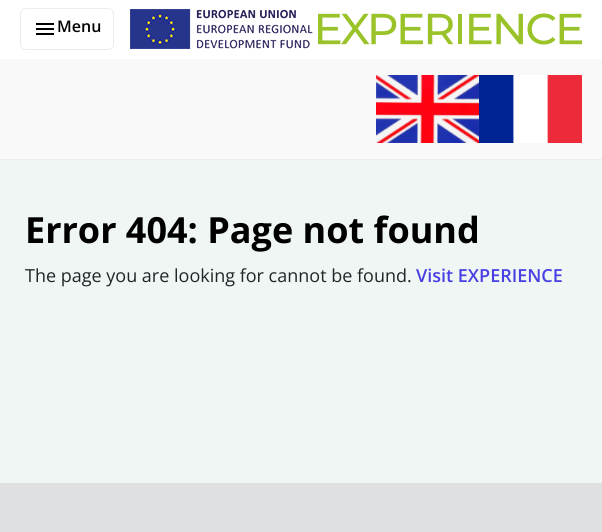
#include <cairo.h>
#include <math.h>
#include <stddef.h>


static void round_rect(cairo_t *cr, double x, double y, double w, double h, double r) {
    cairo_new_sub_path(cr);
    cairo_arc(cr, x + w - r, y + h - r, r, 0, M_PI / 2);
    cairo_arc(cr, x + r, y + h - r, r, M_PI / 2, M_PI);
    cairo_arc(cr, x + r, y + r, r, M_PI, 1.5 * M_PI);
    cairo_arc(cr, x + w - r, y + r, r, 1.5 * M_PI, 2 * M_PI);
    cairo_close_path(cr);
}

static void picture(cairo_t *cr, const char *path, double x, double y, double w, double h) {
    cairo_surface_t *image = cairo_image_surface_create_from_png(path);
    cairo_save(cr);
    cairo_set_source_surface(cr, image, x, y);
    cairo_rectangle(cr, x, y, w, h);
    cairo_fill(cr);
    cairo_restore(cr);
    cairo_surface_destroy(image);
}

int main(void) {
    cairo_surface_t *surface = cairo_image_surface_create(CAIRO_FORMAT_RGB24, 602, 532);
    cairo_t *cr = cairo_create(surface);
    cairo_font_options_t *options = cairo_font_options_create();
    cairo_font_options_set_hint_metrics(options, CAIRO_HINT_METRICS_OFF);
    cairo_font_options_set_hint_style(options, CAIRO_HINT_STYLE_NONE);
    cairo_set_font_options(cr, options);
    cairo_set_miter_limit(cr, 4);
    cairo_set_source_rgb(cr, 1, 1, 1);
    cairo_paint(cr);
    cairo_set_source_rgb(cr, 0.922, 0.922, 0.922);
    cairo_rectangle(cr, 0, 159, 602, 1);
    cairo_fill(cr);
    round_rect(cr, 20.5, 8.5, 93, 41, 5.5);
    cairo_set_line_width(cr, 1);
    cairo_stroke(cr);
    picture(cr, "img1.png", 36, 23, 18, 12);
    cairo_select_font_face(cr, "Open Sans SemiBold", CAIRO_FONT_SLANT_NORMAL, CAIRO_FONT_WEIGHT_NORMAL);
    cairo_set_font_size(cr, 16);
    cairo_set_source_rgb(cr, 0, 0, 0);
    cairo_move_to(cr, 57, 32);
    cairo_show_text(cr, "Menu");
    picture(cr, "img2.png", 130, 9, 183, 40);
    picture(cr, "img3.png", 318, 13, 264, 32);
    cairo_set_source_rgb(cr, 0.976, 0.976, 0.976);
    cairo_rectangle(cr, 0, 59, 602, 100);
    cairo_fill(cr);
    picture(cr, "img4.png", 376, 75, 103, 68);
    picture(cr, "img5.png", 479, 75, 103, 68);
    cairo_set_source_rgb(cr, 0.941, 0.961, 0.953);
    cairo_rectangle(cr, 0, 160, 602, 323);
    cairo_fill(cr);
    cairo_select_font_face(cr, "Open Sans", CAIRO_FONT_SLANT_NORMAL, CAIRO_FONT_WEIGHT_BOLD);
    cairo_set_font_size(cr, 36);
    cairo_set_source_rgb(cr, 0, 0, 0);
    cairo_move_to(cr, 25, 243);
    cairo_show_text(cr, "Error 404: Page not found");
    cairo_select_font_face(cr, "Open Sans", CAIRO_FONT_SLANT_NORMAL, CAIRO_FONT_WEIGHT_NORMAL);
    cairo_set_font_size(cr, 18);
    cairo_set_source_rgb(cr, 0.129, 0.145, 0.161);
    cairo_move_to(cr, 25, 282);
    cairo_show_text(cr, "The page you are looking for cannot be found.");
    cairo_select_font_face(cr, "Open Sans SemiBold", CAIRO_FONT_SLANT_NORMAL, CAIRO_FONT_WEIGHT_NORMAL);
    cairo_set_source_rgb(cr, 0.282, 0.251, 0.89);
    cairo_move_to(cr, 416, 282);
    cairo_show_text(cr, "Visit EXPERIENCE");
    cairo_set_source_rgb(cr, 0.871, 0.878, 0.886);
    cairo_rectangle(cr, 0, 483, 602, 49);
    cairo_fill(cr);
    cairo_surface_write_to_png(surface, "page.png");
    cairo_font_options_destroy(options);
    cairo_destroy(cr);
    cairo_surface_destroy(surface);
    return 0;
}
